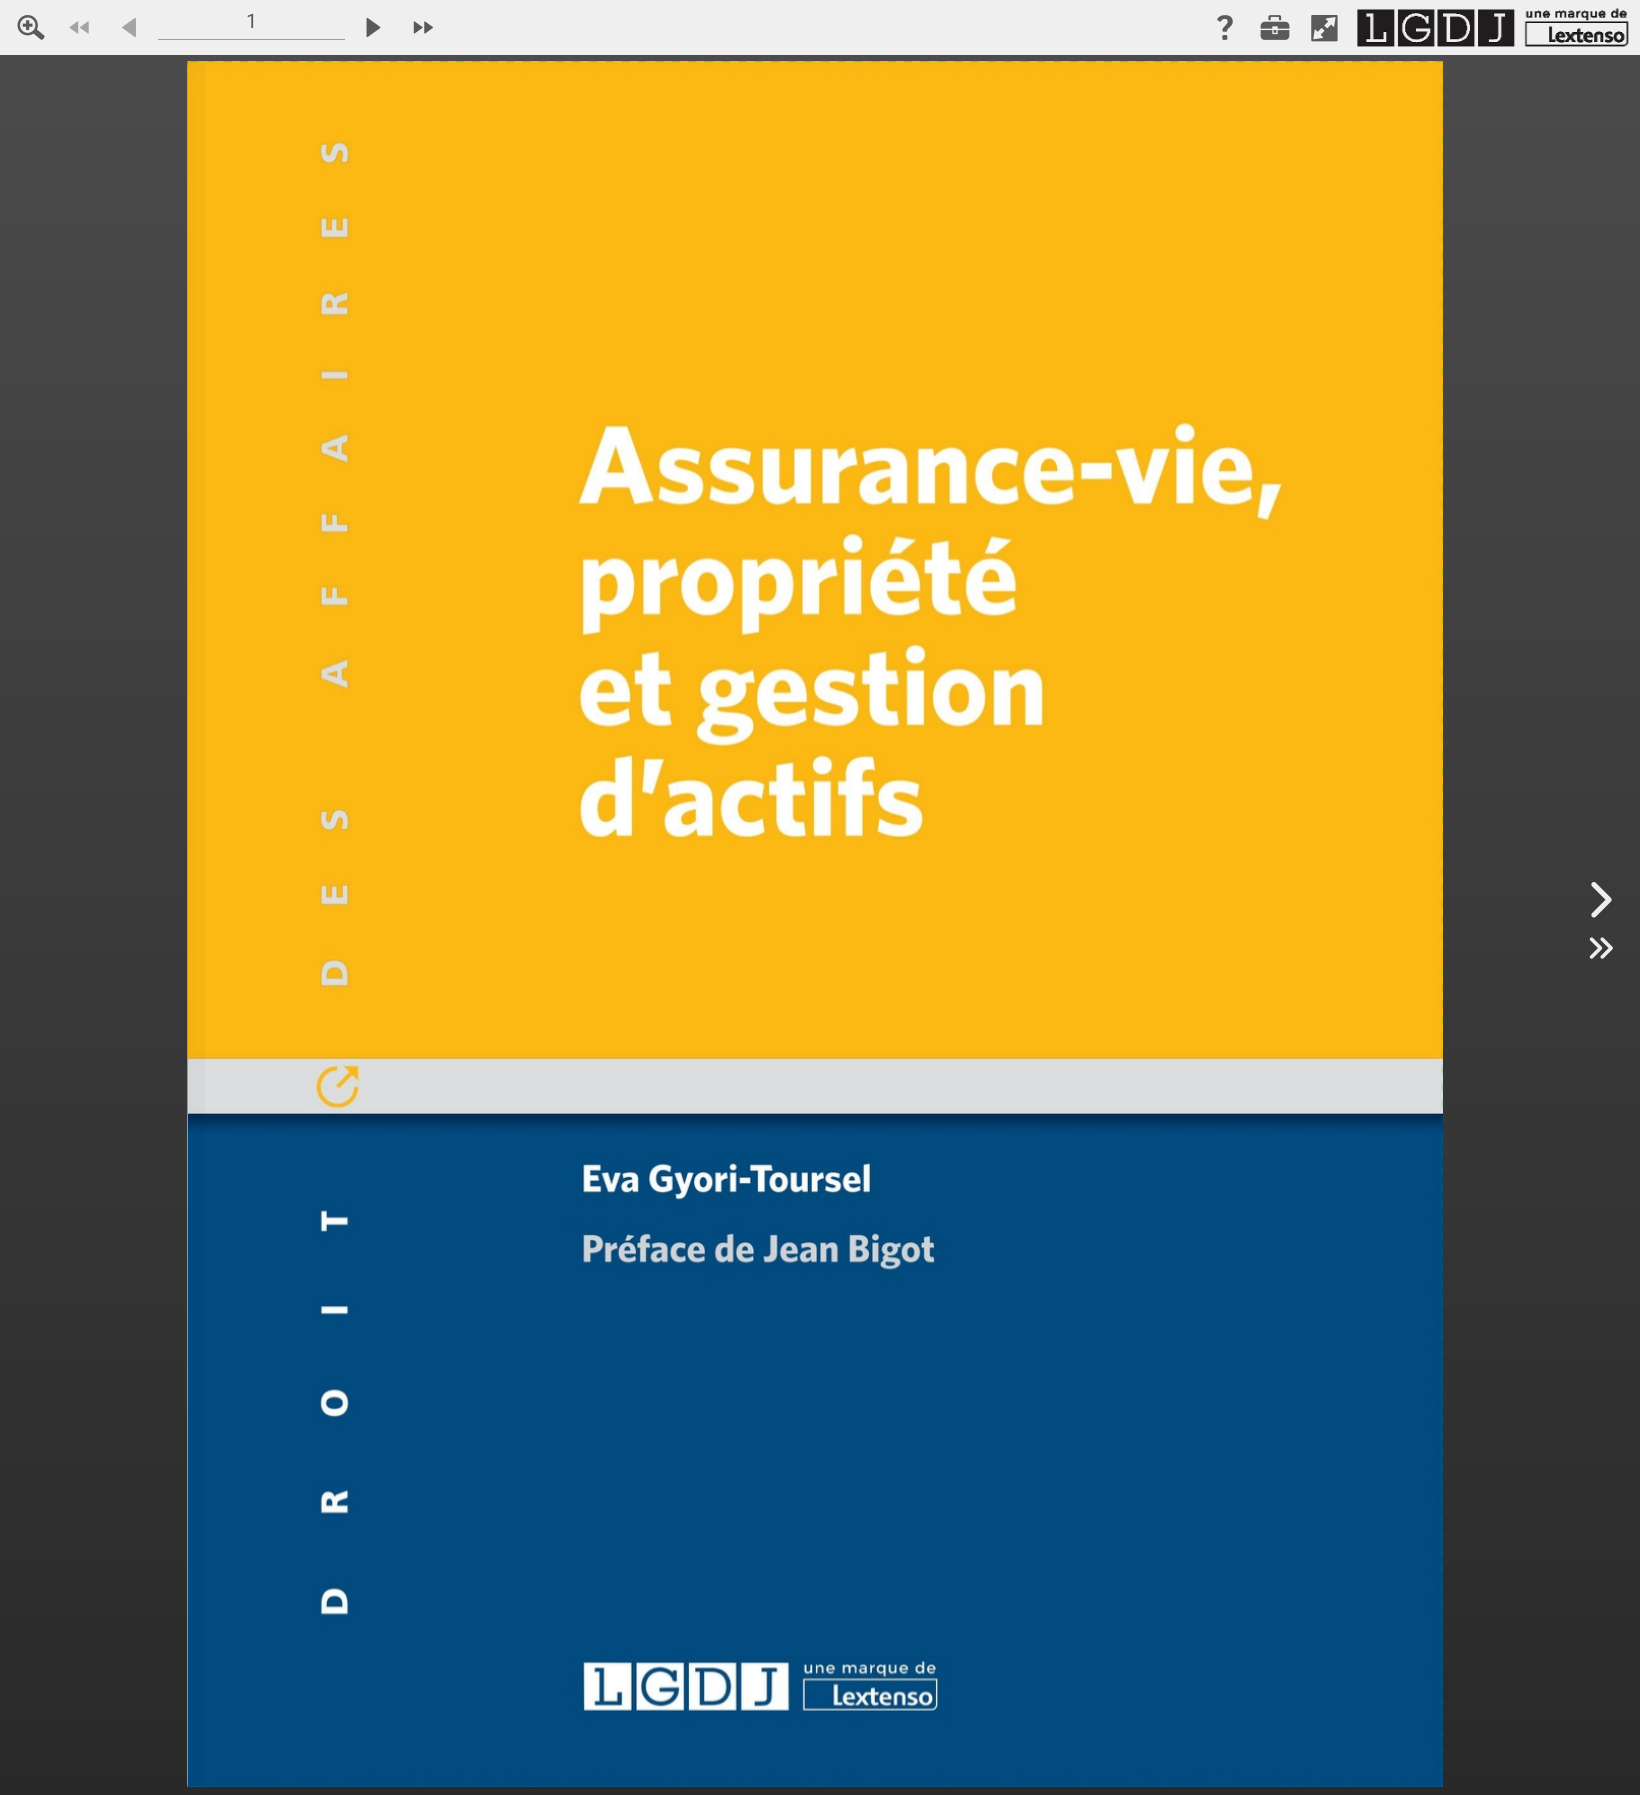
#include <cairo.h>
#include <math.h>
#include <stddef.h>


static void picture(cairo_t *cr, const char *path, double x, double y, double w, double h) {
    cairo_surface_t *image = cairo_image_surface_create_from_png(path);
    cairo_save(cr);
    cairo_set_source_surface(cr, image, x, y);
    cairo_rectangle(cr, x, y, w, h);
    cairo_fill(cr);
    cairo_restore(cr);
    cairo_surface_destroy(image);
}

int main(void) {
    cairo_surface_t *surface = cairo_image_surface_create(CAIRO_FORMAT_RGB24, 1640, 1795);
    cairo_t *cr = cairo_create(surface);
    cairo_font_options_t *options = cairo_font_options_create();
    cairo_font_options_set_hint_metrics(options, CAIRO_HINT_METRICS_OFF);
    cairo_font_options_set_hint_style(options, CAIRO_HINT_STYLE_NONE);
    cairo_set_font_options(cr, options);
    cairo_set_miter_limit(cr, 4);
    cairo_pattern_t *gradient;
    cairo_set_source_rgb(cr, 1, 1, 1);
    cairo_paint(cr);
    gradient = cairo_pattern_create_linear(820, 0, 820, 1795);
    cairo_pattern_add_color_stop_rgba(gradient, 0, 0.298, 0.298, 0.298, 1);
    cairo_pattern_add_color_stop_rgba(gradient, 1, 0.161, 0.161, 0.161, 1);
    cairo_set_source(cr, gradient);
    cairo_pattern_destroy(gradient);
    cairo_rectangle(cr, 0, 55, 1640, 1740);
    cairo_fill(cr);
    cairo_set_source_rgb(cr, 0.937, 0.937, 0.937);
    cairo_rectangle(cr, 0, 0, 1640, 55);
    cairo_fill(cr);
    picture(cr, "img1.png", 17, 15, 28, 25);
    picture(cr, "img2.png", 69, 21, 20, 13);
    picture(cr, "img3.png", 122, 18, 14, 19);
    cairo_set_source_rgb(cr, 0.62, 0.62, 0.62);
    cairo_rectangle(cr, 158, 39, 187, 1);
    cairo_fill(cr);
    cairo_select_font_face(cr, "Roboto", CAIRO_FONT_SLANT_NORMAL, CAIRO_FONT_WEIGHT_NORMAL);
    cairo_set_font_size(cr, 20);
    cairo_set_source_rgb(cr, 0.353, 0.353, 0.353);
    cairo_move_to(cr, 246, 28);
    cairo_show_text(cr, "1");
    picture(cr, "img4.png", 366, 17, 15, 21);
    picture(cr, "img5.png", 413, 21, 20, 13);
    picture(cr, "img6.png", 1217, 15, 16, 25);
    picture(cr, "img7.png", 1260, 15, 30, 25);
    picture(cr, "img8.png", 1311, 15, 27, 27);
    picture(cr, "img9.png", 1357, 8, 272, 39);
    picture(cr, "img10.png", 187, 61, 1256, 1726);
    picture(cr, "img11.png", 188, 61, 1255, 1725);
    picture(cr, "img12.png", 188, 61, 1255, 1726);
    gradient = cairo_pattern_create_linear(1443, 925, 187, 925);
    cairo_pattern_add_color_stop_rgba(gradient, 0.95, 0, 0, 0, 0);
    cairo_pattern_add_color_stop_rgba(gradient, 1, 0, 0, 0, 0.03);
    cairo_set_source(cr, gradient);
    cairo_pattern_destroy(gradient);
    cairo_rectangle(cr, 188, 61, 17, 1725);
    cairo_fill(cr);
    picture(cr, "img13.png", 1591, 882, 21, 36);
    picture(cr, "img14.png", 1589, 937, 24, 22);
    cairo_surface_write_to_png(surface, "page.png");
    cairo_font_options_destroy(options);
    cairo_destroy(cr);
    cairo_surface_destroy(surface);
    return 0;
}
